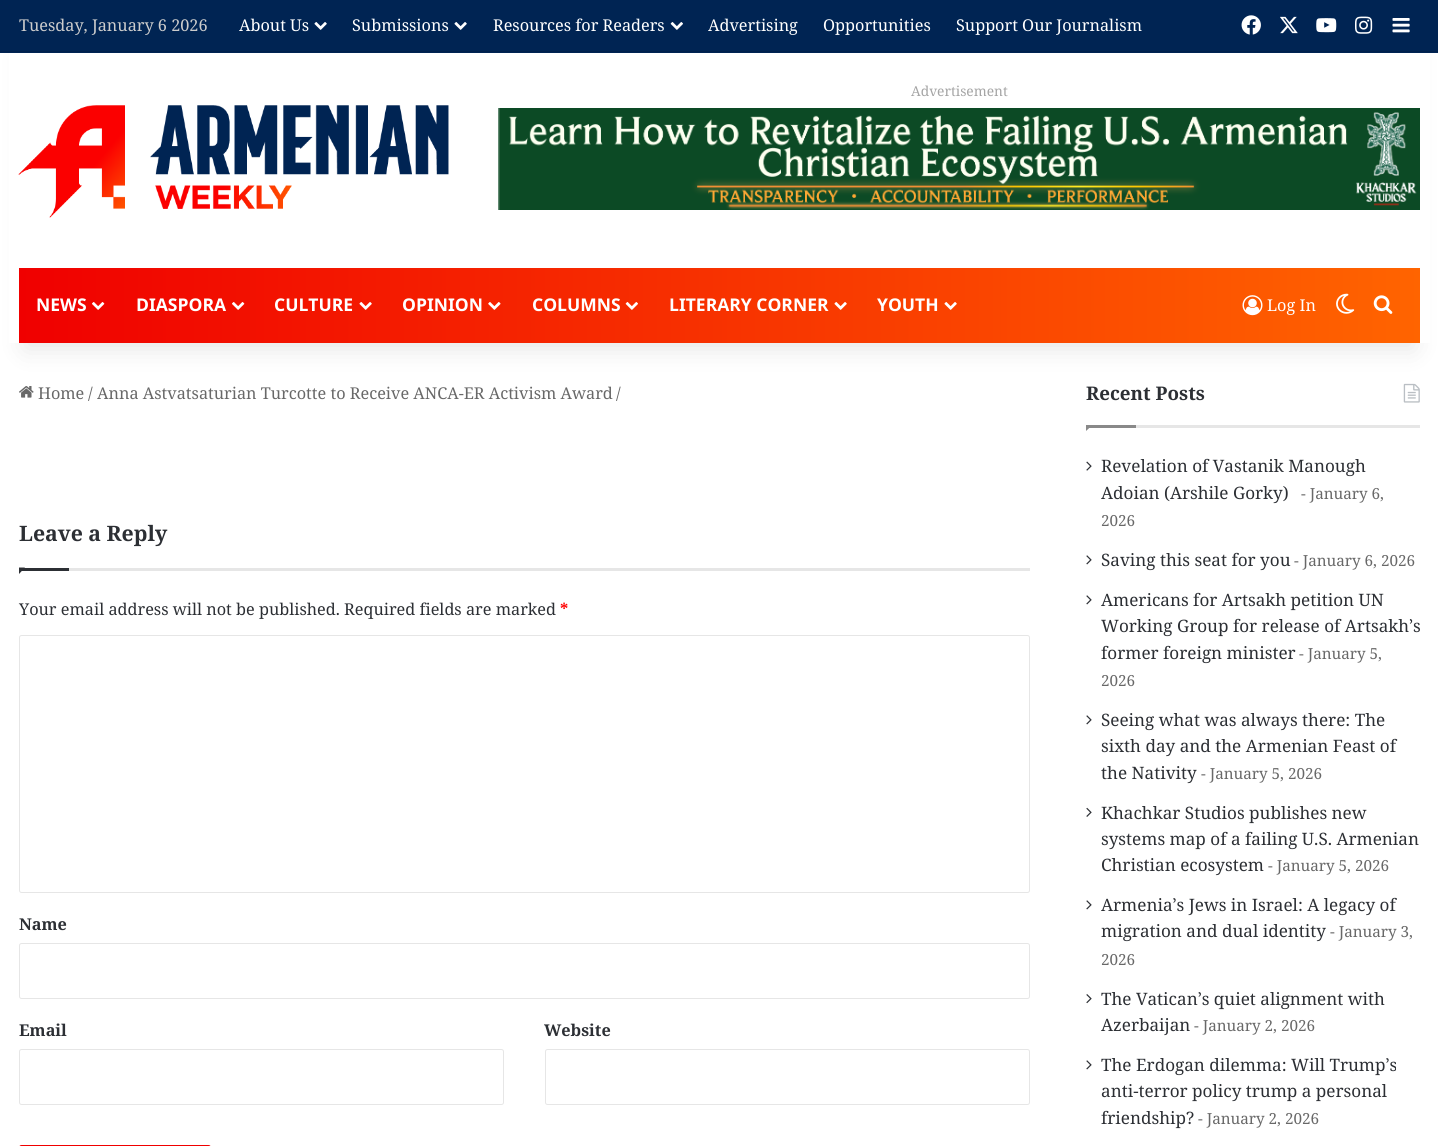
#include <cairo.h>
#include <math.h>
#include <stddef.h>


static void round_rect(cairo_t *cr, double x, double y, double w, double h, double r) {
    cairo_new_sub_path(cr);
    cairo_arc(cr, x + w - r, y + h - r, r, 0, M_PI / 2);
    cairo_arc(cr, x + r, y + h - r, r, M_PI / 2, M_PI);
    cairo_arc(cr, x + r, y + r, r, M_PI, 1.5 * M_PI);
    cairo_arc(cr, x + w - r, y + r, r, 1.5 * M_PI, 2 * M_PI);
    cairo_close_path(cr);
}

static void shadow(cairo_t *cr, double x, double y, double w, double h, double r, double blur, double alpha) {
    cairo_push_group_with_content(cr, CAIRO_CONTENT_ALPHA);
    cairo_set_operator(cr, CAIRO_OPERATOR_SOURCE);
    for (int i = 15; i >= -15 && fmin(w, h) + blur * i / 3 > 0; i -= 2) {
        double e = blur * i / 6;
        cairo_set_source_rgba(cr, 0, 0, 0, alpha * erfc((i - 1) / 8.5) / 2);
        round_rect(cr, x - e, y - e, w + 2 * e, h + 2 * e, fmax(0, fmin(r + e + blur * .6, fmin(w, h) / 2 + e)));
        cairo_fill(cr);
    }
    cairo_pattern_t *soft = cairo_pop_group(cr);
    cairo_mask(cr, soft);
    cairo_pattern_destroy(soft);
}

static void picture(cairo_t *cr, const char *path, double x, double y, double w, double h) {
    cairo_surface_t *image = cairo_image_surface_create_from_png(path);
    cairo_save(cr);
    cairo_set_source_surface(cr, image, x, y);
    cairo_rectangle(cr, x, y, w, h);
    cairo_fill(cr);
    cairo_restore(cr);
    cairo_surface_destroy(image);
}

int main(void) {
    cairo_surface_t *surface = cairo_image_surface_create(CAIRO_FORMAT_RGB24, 1438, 1146);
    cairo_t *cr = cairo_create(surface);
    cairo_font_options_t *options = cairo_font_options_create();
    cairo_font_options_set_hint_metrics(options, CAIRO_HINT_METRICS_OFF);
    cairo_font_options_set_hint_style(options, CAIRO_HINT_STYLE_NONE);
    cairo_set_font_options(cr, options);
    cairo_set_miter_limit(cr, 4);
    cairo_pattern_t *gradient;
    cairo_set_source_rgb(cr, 1, 1, 1);
    cairo_paint(cr);
    picture(cr, "img20.png", 19, 386, 15, 12);
    picture(cr, "img21.png", 1403, 383, 17, 20);
    cairo_set_source_rgb(cr, 0, 0, 0);
    shadow(cr, 25, 56, 1389, 293, 0, 12.5, 0.1);
    cairo_set_source_rgb(cr, 1, 1, 1);
    cairo_rectangle(cr, 9, 53, 1421, 290);
    cairo_fill(cr);
    cairo_set_source_rgb(cr, 0, 0.141, 0.325);
    cairo_rectangle(cr, 0, 0, 1438, 53);
    cairo_fill(cr);
    cairo_set_source_rgb(cr, 0, 0.125, 0.294);
    cairo_rectangle(cr, 0, 51, 1438, 1);
    cairo_fill(cr);
    cairo_select_font_face(cr, "Noto Serif Armenian", CAIRO_FONT_SLANT_NORMAL, CAIRO_FONT_WEIGHT_NORMAL);
    cairo_set_font_size(cr, 16.25);
    cairo_set_source_rgb(cr, 0.8, 0.8, 0.8);
    cairo_move_to(cr, 19, 31);
    cairo_show_text(cr, "Tuesday, January 6 2026");
    cairo_set_source_rgb(cr, 1, 1, 1);
    cairo_move_to(cr, 239, 31);
    cairo_show_text(cr, "About Us");
    picture(cr, "img1.png", 314, 22, 13, 8);
    cairo_move_to(cr, 352, 31);
    cairo_show_text(cr, "Submissions");
    picture(cr, "img1.png", 454, 22, 13, 8);
    cairo_move_to(cr, 493, 31);
    cairo_show_text(cr, "Resources for Readers");
    picture(cr, "img2.png", 670, 22, 13, 8);
    cairo_move_to(cr, 708, 31);
    cairo_show_text(cr, "Advertising");
    cairo_move_to(cr, 823, 31);
    cairo_show_text(cr, "Opportunities");
    cairo_move_to(cr, 956, 31);
    cairo_show_text(cr, "Support Our Journalism");
    picture(cr, "img3.png", 1241, 15, 20, 20);
    picture(cr, "img4.png", 1280, 16, 18, 18);
    picture(cr, "img5.png", 1316, 18, 21, 15);
    picture(cr, "img6.png", 1355, 16, 18, 18);
    picture(cr, "img7.png", 1392, 18, 18, 15);
    cairo_set_font_size(cr, 13.75);
    cairo_set_source_rgb(cr, 0.647, 0.647, 0.647);
    cairo_move_to(cr, 911, 96);
    cairo_show_text(cr, "Advertisement");
    picture(cr, "img8.png", 498, 108, 922, 102);
    picture(cr, "img9.png", 18, 105, 431, 113);
    gradient = cairo_pattern_create_linear(19, 305, 1420, 305);
    cairo_pattern_add_color_stop_rgba(gradient, 0, 0.941, 0, 0, 1);
    cairo_pattern_add_color_stop_rgba(gradient, 1, 1, 0.392, 0, 1);
    cairo_set_source(cr, gradient);
    cairo_pattern_destroy(gradient);
    cairo_rectangle(cr, 19, 268, 1401, 75);
    cairo_fill(cr);
    cairo_select_font_face(cr, "Noto Sans Armenian", CAIRO_FONT_SLANT_NORMAL, CAIRO_FONT_WEIGHT_BOLD);
    cairo_set_font_size(cr, 17.5);
    cairo_set_source_rgb(cr, 1, 1, 1);
    cairo_move_to(cr, 36, 311);
    cairo_show_text(cr, "NEWS");
    picture(cr, "img10.png", 92, 302, 13, 8);
    cairo_move_to(cr, 136, 311);
    cairo_show_text(cr, "DIASPORA");
    picture(cr, "img11.png", 232, 302, 13, 8);
    cairo_move_to(cr, 274, 311);
    cairo_show_text(cr, "CULTURE");
    picture(cr, "img12.png", 359, 302, 13, 8);
    cairo_move_to(cr, 402, 311);
    cairo_show_text(cr, "OPINION");
    picture(cr, "img13.png", 488, 302, 13, 8);
    cairo_move_to(cr, 532, 311);
    cairo_show_text(cr, "COLUMNS");
    picture(cr, "img14.png", 625, 302, 13, 8);
    cairo_move_to(cr, 669, 311);
    cairo_show_text(cr, "LITERARY CORNER");
    picture(cr, "img15.png", 834, 302, 13, 8);
    cairo_move_to(cr, 877, 311);
    cairo_show_text(cr, "YOUTH");
    picture(cr, "img16.png", 944, 302, 13, 8);
    picture(cr, "img17.png", 1242, 295, 21, 21);
    cairo_select_font_face(cr, "Noto Serif Armenian", CAIRO_FONT_SLANT_NORMAL, CAIRO_FONT_WEIGHT_NORMAL);
    cairo_set_font_size(cr, 16.25);
    cairo_move_to(cr, 1267, 311);
    cairo_show_text(cr, "Log In");
    picture(cr, "img18.png", 1336, 293, 19, 21);
    picture(cr, "img19.png", 1373, 295, 20, 19);
    cairo_set_source_rgb(cr, 0.408, 0.408, 0.408);
    cairo_move_to(cr, 38, 399);
    cairo_show_text(cr, "Home");
    cairo_move_to(cr, 88, 399);
    cairo_show_text(cr, "/");
    cairo_move_to(cr, 97, 399);
    cairo_show_text(cr, "Anna Astvatsaturian Turcotte to Receive ANCA-ER Activism Award");
    cairo_move_to(cr, 616, 399);
    cairo_show_text(cr, "/");
    cairo_set_source_rgb(cr, 0.902, 0.902, 0.902);
    cairo_rectangle(cr, 69, 568, 961, 3);
    cairo_fill(cr);
    cairo_select_font_face(cr, "Noto Serif Armenian", CAIRO_FONT_SLANT_NORMAL, CAIRO_FONT_WEIGHT_BOLD);
    cairo_set_font_size(cr, 21.25);
    cairo_set_source_rgb(cr, 0.173, 0.184, 0.204);
    cairo_move_to(cr, 19, 541);
    cairo_show_text(cr, "Leave a Reply");
    cairo_new_path(cr);
    cairo_move_to(cr, 19, 567.5);
    cairo_line_to(cr, 25, 567.5);
    cairo_line_to(cr, 19, 574);
    cairo_close_path(cr);
    cairo_fill(cr);
    cairo_rectangle(cr, 19, 568, 50, 3);
    cairo_fill(cr);
    cairo_select_font_face(cr, "Noto Serif Armenian", CAIRO_FONT_SLANT_NORMAL, CAIRO_FONT_WEIGHT_NORMAL);
    cairo_set_font_size(cr, 16.25);
    cairo_move_to(cr, 19, 615);
    cairo_show_text(cr, "Your email address will not be published. Required fields are marked");
    cairo_select_font_face(cr, "Noto Serif Armenian", CAIRO_FONT_SLANT_NORMAL, CAIRO_FONT_WEIGHT_BOLD);
    cairo_set_source_rgb(cr, 1, 0, 0);
    cairo_move_to(cr, 560, 615);
    cairo_show_text(cr, "*");
    round_rect(cr, 19.5, 635.5, 1010, 257, 2);
    cairo_set_source_rgb(cr, 0.902, 0.902, 0.902);
    cairo_set_line_width(cr, 1);
    cairo_stroke(cr);
    cairo_set_source_rgb(cr, 0.173, 0.184, 0.204);
    cairo_move_to(cr, 19, 930);
    cairo_show_text(cr, "Name");
    round_rect(cr, 19.5, 943.5, 1010, 55, 2);
    cairo_set_source_rgb(cr, 0.902, 0.902, 0.902);
    cairo_stroke(cr);
    cairo_set_source_rgb(cr, 0.173, 0.184, 0.204);
    cairo_move_to(cr, 19, 1036);
    cairo_show_text(cr, "Email");
    round_rect(cr, 19.5, 1049.5, 484, 55, 2);
    cairo_set_source_rgb(cr, 0.902, 0.902, 0.902);
    cairo_stroke(cr);
    cairo_set_source_rgb(cr, 0.173, 0.184, 0.204);
    cairo_move_to(cr, 544, 1036);
    cairo_show_text(cr, "Website");
    round_rect(cr, 545.5, 1049.5, 484, 55, 2);
    cairo_set_source_rgb(cr, 0.902, 0.902, 0.902);
    cairo_stroke(cr);
    round_rect(cr, 19.5, 1145.5, 191, 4, 2);
    cairo_set_source_rgb(cr, 0.941, 0, 0);
    cairo_stroke(cr);
    cairo_set_source_rgb(cr, 0.902, 0.902, 0.902);
    cairo_rectangle(cr, 1136, 425, 284, 3);
    cairo_fill(cr);
    cairo_set_font_size(cr, 18.75);
    cairo_set_source_rgb(cr, 0.173, 0.184, 0.204);
    cairo_move_to(cr, 1086, 400);
    cairo_show_text(cr, "Recent Posts");
    cairo_set_source_rgb(cr, 0.537, 0.537, 0.537);
    cairo_new_path(cr);
    cairo_move_to(cr, 1086, 425);
    cairo_line_to(cr, 1092.5, 425);
    cairo_line_to(cr, 1086, 431);
    cairo_close_path(cr);
    cairo_fill(cr);
    cairo_rectangle(cr, 1086, 425, 50, 3);
    cairo_fill(cr);
    picture(cr, "img22.png", 1086, 461, 6, 10);
    cairo_select_font_face(cr, "Noto Serif Armenian", CAIRO_FONT_SLANT_NORMAL, CAIRO_FONT_WEIGHT_NORMAL);
    cairo_set_font_size(cr, 17.1);
    cairo_set_source_rgb(cr, 0.173, 0.184, 0.204);
    cairo_move_to(cr, 1101, 472);
    cairo_show_text(cr, "Revelation of Vastanik Manough");
    cairo_move_to(cr, 1101, 499);
    cairo_show_text(cr, "Adoian (Arshile Gorky)");
    cairo_set_font_size(cr, 15.25);
    cairo_set_source_rgb(cr, 0.408, 0.408, 0.408);
    cairo_move_to(cr, 1301, 499);
    cairo_show_text(cr, "- January 6,");
    cairo_move_to(cr, 1101, 526);
    cairo_show_text(cr, "2026");
    picture(cr, "img23.png", 1086, 555, 6, 10);
    cairo_set_font_size(cr, 17.1);
    cairo_set_source_rgb(cr, 0.173, 0.184, 0.204);
    cairo_move_to(cr, 1101, 566);
    cairo_show_text(cr, "Saving this seat for you");
    cairo_set_font_size(cr, 15.25);
    cairo_set_source_rgb(cr, 0.408, 0.408, 0.408);
    cairo_move_to(cr, 1294, 566);
    cairo_show_text(cr, "- January 6, 2026");
    picture(cr, "img23.png", 1086, 595, 6, 10);
    cairo_set_font_size(cr, 17.1);
    cairo_set_source_rgb(cr, 0.173, 0.184, 0.204);
    cairo_move_to(cr, 1101, 606);
    cairo_show_text(cr, "Americans for Artsakh petition UN");
    cairo_move_to(cr, 1101, 632);
    cairo_show_text(cr, "Working Group for release of Artsakh’s");
    cairo_move_to(cr, 1101, 659);
    cairo_show_text(cr, "former foreign minister");
    cairo_set_font_size(cr, 15.25);
    cairo_set_source_rgb(cr, 0.408, 0.408, 0.408);
    cairo_move_to(cr, 1299, 659);
    cairo_show_text(cr, "- January 5,");
    cairo_move_to(cr, 1101, 686);
    cairo_show_text(cr, "2026");
    picture(cr, "img23.png", 1086, 715, 6, 10);
    cairo_set_font_size(cr, 17.1);
    cairo_set_source_rgb(cr, 0.173, 0.184, 0.204);
    cairo_move_to(cr, 1101, 726);
    cairo_show_text(cr, "Seeing what was always there: The");
    cairo_move_to(cr, 1101, 752);
    cairo_show_text(cr, "sixth day and the Armenian Feast of");
    cairo_move_to(cr, 1101, 779);
    cairo_show_text(cr, "the Nativity");
    cairo_set_font_size(cr, 15.25);
    cairo_set_source_rgb(cr, 0.408, 0.408, 0.408);
    cairo_move_to(cr, 1201, 779);
    cairo_show_text(cr, "- January 5, 2026");
    picture(cr, "img24.png", 1086, 807, 6, 10);
    cairo_set_font_size(cr, 17.1);
    cairo_set_source_rgb(cr, 0.173, 0.184, 0.204);
    cairo_move_to(cr, 1101, 819);
    cairo_show_text(cr, "Khachkar Studios publishes new");
    cairo_move_to(cr, 1101, 845);
    cairo_show_text(cr, "systems map of a failing U.S. Armenian");
    cairo_move_to(cr, 1101, 871);
    cairo_show_text(cr, "Christian ecosystem");
    cairo_set_font_size(cr, 15.25);
    cairo_set_source_rgb(cr, 0.408, 0.408, 0.408);
    cairo_move_to(cr, 1268, 871);
    cairo_show_text(cr, "- January 5, 2026");
    picture(cr, "img23.png", 1086, 900, 6, 10);
    cairo_set_font_size(cr, 17.1);
    cairo_set_source_rgb(cr, 0.173, 0.184, 0.204);
    cairo_move_to(cr, 1101, 911);
    cairo_show_text(cr, "Armenia’s Jews in Israel: A legacy of");
    cairo_move_to(cr, 1101, 937);
    cairo_show_text(cr, "migration and dual identity");
    cairo_set_font_size(cr, 15.25);
    cairo_set_source_rgb(cr, 0.408, 0.408, 0.408);
    cairo_move_to(cr, 1330, 937);
    cairo_show_text(cr, "- January 3,");
    cairo_move_to(cr, 1101, 965);
    cairo_show_text(cr, "2026");
    picture(cr, "img25.png", 1086, 994, 6, 10);
    cairo_set_font_size(cr, 17.1);
    cairo_set_source_rgb(cr, 0.173, 0.184, 0.204);
    cairo_move_to(cr, 1101, 1005);
    cairo_show_text(cr, "The Vatican’s quiet alignment with");
    cairo_move_to(cr, 1101, 1031);
    cairo_show_text(cr, "Azerbaijan");
    cairo_set_font_size(cr, 15.25);
    cairo_set_source_rgb(cr, 0.408, 0.408, 0.408);
    cairo_move_to(cr, 1194, 1031);
    cairo_show_text(cr, "- January 2, 2026");
    picture(cr, "img23.png", 1086, 1060, 6, 10);
    cairo_set_font_size(cr, 17.1);
    cairo_set_source_rgb(cr, 0.173, 0.184, 0.204);
    cairo_move_to(cr, 1101, 1071);
    cairo_show_text(cr, "The Erdogan dilemma: Will Trump’s");
    cairo_move_to(cr, 1101, 1097);
    cairo_show_text(cr, "anti-terror policy trump a personal");
    cairo_move_to(cr, 1101, 1124);
    cairo_show_text(cr, "friendship?");
    cairo_set_font_size(cr, 15.25);
    cairo_set_source_rgb(cr, 0.408, 0.408, 0.408);
    cairo_move_to(cr, 1198, 1124);
    cairo_show_text(cr, "- January 2, 2026");
    cairo_surface_write_to_png(surface, "page.png");
    cairo_font_options_destroy(options);
    cairo_destroy(cr);
    cairo_surface_destroy(surface);
    return 0;
}
